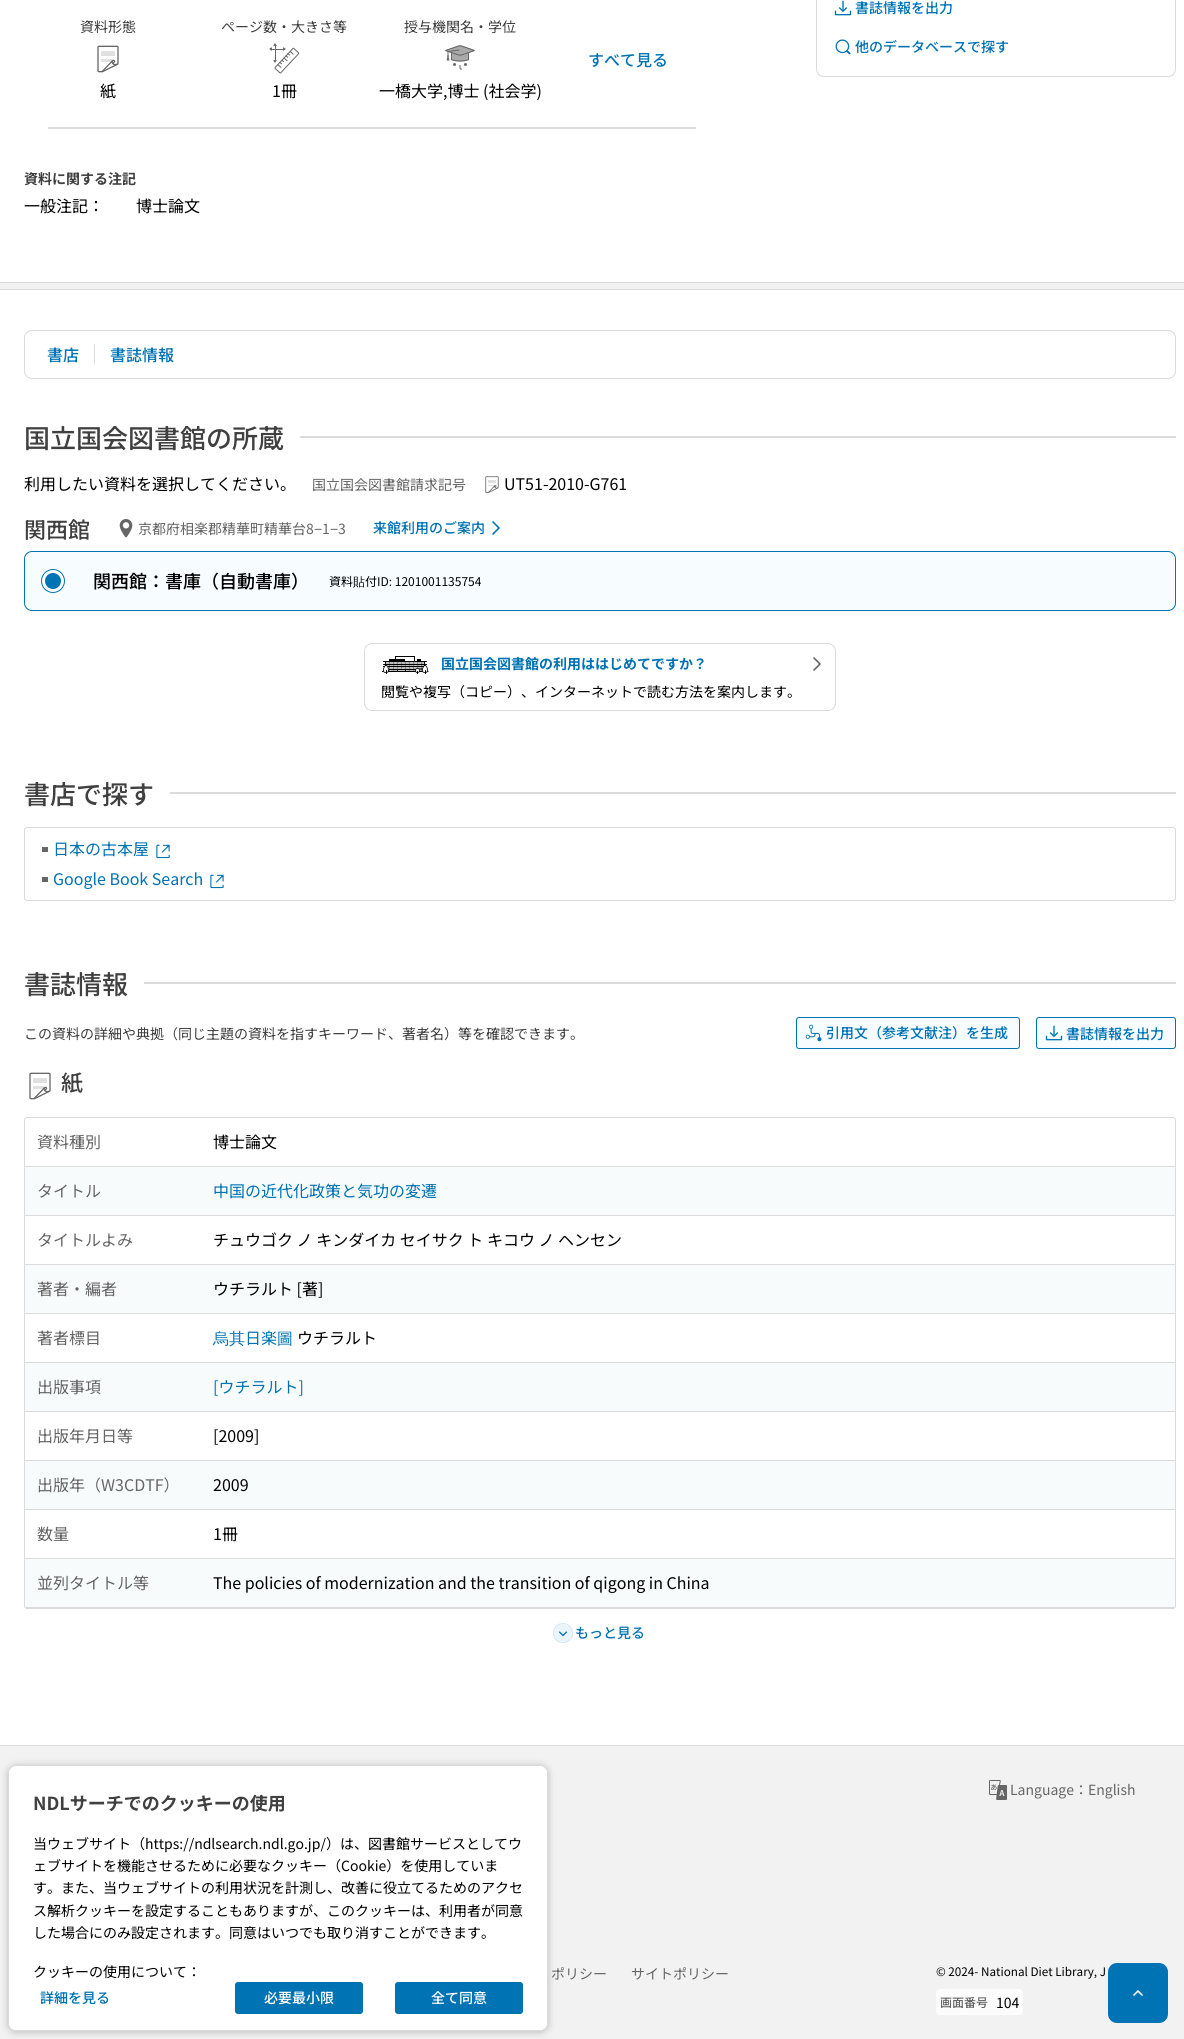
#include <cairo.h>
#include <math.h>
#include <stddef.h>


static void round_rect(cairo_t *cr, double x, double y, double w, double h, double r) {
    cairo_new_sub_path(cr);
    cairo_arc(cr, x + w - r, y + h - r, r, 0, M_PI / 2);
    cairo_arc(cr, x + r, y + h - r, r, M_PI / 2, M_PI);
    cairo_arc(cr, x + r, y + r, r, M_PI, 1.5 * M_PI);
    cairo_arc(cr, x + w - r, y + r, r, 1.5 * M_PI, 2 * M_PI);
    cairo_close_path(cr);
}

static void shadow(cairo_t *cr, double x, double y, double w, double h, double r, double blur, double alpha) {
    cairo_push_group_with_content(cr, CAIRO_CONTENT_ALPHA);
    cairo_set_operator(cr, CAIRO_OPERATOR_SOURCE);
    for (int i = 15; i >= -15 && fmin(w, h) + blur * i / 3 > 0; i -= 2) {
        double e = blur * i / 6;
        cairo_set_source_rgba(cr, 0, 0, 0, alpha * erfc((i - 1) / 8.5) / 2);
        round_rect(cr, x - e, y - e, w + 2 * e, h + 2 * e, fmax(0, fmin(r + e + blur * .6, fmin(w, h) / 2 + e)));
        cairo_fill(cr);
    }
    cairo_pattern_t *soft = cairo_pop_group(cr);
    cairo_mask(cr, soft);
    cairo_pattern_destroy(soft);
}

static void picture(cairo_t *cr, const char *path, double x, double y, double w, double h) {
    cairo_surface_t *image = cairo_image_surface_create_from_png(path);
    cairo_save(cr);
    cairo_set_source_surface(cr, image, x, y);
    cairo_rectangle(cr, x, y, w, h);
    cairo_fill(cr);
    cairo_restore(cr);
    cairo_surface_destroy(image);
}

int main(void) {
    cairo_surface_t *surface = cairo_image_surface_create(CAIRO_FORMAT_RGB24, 1184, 2039);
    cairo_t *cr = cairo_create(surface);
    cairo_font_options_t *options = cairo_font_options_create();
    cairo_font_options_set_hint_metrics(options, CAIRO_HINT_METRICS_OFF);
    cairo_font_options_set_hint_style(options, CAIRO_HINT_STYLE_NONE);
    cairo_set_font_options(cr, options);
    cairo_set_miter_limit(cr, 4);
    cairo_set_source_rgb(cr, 1, 1, 1);
    cairo_paint(cr);
    cairo_select_font_face(cr, "Noto Sans JP", CAIRO_FONT_SLANT_NORMAL, CAIRO_FONT_WEIGHT_NORMAL);
    cairo_set_font_size(cr, 14);
    cairo_set_source_rgb(cr, 0.251, 0.251, 0.251);
    cairo_move_to(cr, 80, 32);
    cairo_show_text(cr, "資料形態");
    picture(cr, "img1.png", 97, 45, 22, 28);
    cairo_set_font_size(cr, 16);
    cairo_set_source_rgb(cr, 0, 0, 0);
    cairo_move_to(cr, 100, 97);
    cairo_show_text(cr, "紙");
    cairo_set_font_size(cr, 14);
    cairo_set_source_rgb(cr, 0.251, 0.251, 0.251);
    cairo_move_to(cr, 221, 32);
    cairo_show_text(cr, "ページ数・大きさ等");
    picture(cr, "img2.png", 269, 43, 31, 31);
    cairo_set_font_size(cr, 16);
    cairo_set_source_rgb(cr, 0, 0, 0);
    cairo_move_to(cr, 272, 97);
    cairo_show_text(cr, "1冊");
    cairo_set_font_size(cr, 14);
    cairo_set_source_rgb(cr, 0.251, 0.251, 0.251);
    cairo_move_to(cr, 404, 32);
    cairo_show_text(cr, "授与機関名・学位");
    picture(cr, "img3.png", 445, 45, 30, 25);
    cairo_set_font_size(cr, 16);
    cairo_set_source_rgb(cr, 0, 0, 0);
    cairo_move_to(cr, 379, 97);
    cairo_show_text(cr, "一橋大学,博士 (社会学)");
    cairo_select_font_face(cr, "Noto Sans JP Medium", CAIRO_FONT_SLANT_NORMAL, CAIRO_FONT_WEIGHT_NORMAL);
    cairo_set_source_rgb(cr, 0, 0.451, 0.71);
    cairo_move_to(cr, 588, 66);
    cairo_show_text(cr, "すべて見る");
    cairo_set_source_rgb(cr, 0.859, 0.859, 0.859);
    cairo_rectangle(cr, 48, 127, 648, 2);
    cairo_fill(cr);
    cairo_select_font_face(cr, "Noto Sans JP", CAIRO_FONT_SLANT_NORMAL, CAIRO_FONT_WEIGHT_BOLD);
    cairo_set_font_size(cr, 14);
    cairo_set_source_rgb(cr, 0.251, 0.251, 0.251);
    cairo_move_to(cr, 24, 184);
    cairo_show_text(cr, "資料に関する注記");
    cairo_select_font_face(cr, "Noto Sans JP", CAIRO_FONT_SLANT_NORMAL, CAIRO_FONT_WEIGHT_NORMAL);
    cairo_set_font_size(cr, 16);
    cairo_set_source_rgb(cr, 0, 0, 0);
    cairo_move_to(cr, 24, 212);
    cairo_show_text(cr, "一般注記：");
    cairo_move_to(cr, 136, 212);
    cairo_show_text(cr, "博士論文");
    round_rect(cr, 816.5, -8.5, 359, 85, 7.5);
    cairo_set_source_rgb(cr, 0.859, 0.859, 0.859);
    cairo_set_line_width(cr, 1);
    cairo_stroke(cr);
    picture(cr, "img4.png", 834, 0, 18, 16);
    cairo_select_font_face(cr, "Noto Sans JP Medium", CAIRO_FONT_SLANT_NORMAL, CAIRO_FONT_WEIGHT_NORMAL);
    cairo_set_font_size(cr, 14);
    cairo_set_source_rgb(cr, 0, 0.451, 0.71);
    cairo_move_to(cr, 855, 13);
    cairo_show_text(cr, "書誌情報を出力");
    picture(cr, "img5.png", 835, 39, 16, 16);
    cairo_move_to(cr, 855, 52);
    cairo_show_text(cr, "他のデータベースで探す");
    cairo_set_source_rgb(cr, 0.949, 0.949, 0.949);
    cairo_rectangle(cr, 0, 283, 1184, 6);
    cairo_fill(cr);
    cairo_set_source_rgb(cr, 0.859, 0.859, 0.859);
    cairo_rectangle(cr, 0, 282, 1184, 1);
    cairo_fill(cr);
    cairo_rectangle(cr, 0, 289, 1184, 1);
    cairo_fill(cr);
    round_rect(cr, 24.5, 330.5, 1151, 48, 7.5);
    cairo_stroke(cr);
    cairo_set_font_size(cr, 16);
    cairo_set_source_rgb(cr, 0, 0.451, 0.71);
    cairo_move_to(cr, 47, 361);
    cairo_show_text(cr, "書店");
    cairo_set_source_rgb(cr, 0.859, 0.859, 0.859);
    cairo_rectangle(cr, 94, 344, 1, 20);
    cairo_fill(cr);
    cairo_set_source_rgb(cr, 0, 0.451, 0.71);
    cairo_move_to(cr, 110, 361);
    cairo_show_text(cr, "書誌情報");
    cairo_set_font_size(cr, 26);
    cairo_set_source_rgb(cr, 0.251, 0.251, 0.251);
    cairo_move_to(cr, 24, 448);
    cairo_show_text(cr, "国立国会図書館の所蔵");
    cairo_set_source_rgb(cr, 0.859, 0.859, 0.859);
    cairo_rectangle(cr, 300, 436, 876, 2);
    cairo_fill(cr);
    cairo_select_font_face(cr, "Noto Sans JP", CAIRO_FONT_SLANT_NORMAL, CAIRO_FONT_WEIGHT_NORMAL);
    cairo_set_font_size(cr, 16);
    cairo_set_source_rgb(cr, 0, 0, 0);
    cairo_move_to(cr, 24, 490);
    cairo_show_text(cr, "利用したい資料を選択してください。");
    cairo_set_font_size(cr, 14);
    cairo_set_source_rgb(cr, 0.4, 0.4, 0.4);
    cairo_move_to(cr, 312, 490);
    cairo_show_text(cr, "国立国会図書館請求記号");
    picture(cr, "img6.png", 485, 476, 14, 17);
    cairo_set_font_size(cr, 16);
    cairo_set_source_rgb(cr, 0, 0, 0);
    cairo_move_to(cr, 504, 490);
    cairo_show_text(cr, "UT51-2010-G761");
    cairo_select_font_face(cr, "Noto Sans JP Medium", CAIRO_FONT_SLANT_NORMAL, CAIRO_FONT_WEIGHT_NORMAL);
    cairo_set_font_size(cr, 22);
    cairo_set_source_rgb(cr, 0.251, 0.251, 0.251);
    cairo_move_to(cr, 24, 538);
    cairo_show_text(cr, "関西館");
    picture(cr, "img7.png", 119, 519, 14, 19);
    cairo_select_font_face(cr, "Noto Sans JP", CAIRO_FONT_SLANT_NORMAL, CAIRO_FONT_WEIGHT_NORMAL);
    cairo_set_font_size(cr, 14);
    cairo_set_source_rgb(cr, 0.4, 0.4, 0.4);
    cairo_move_to(cr, 138, 534);
    cairo_show_text(cr, "京都府相楽郡精華町精華台8");
    cairo_select_font_face(cr, "Liberation Sans", CAIRO_FONT_SLANT_NORMAL, CAIRO_FONT_WEIGHT_NORMAL);
    cairo_move_to(cr, 314, 534);
    cairo_show_text(cr, "−");
    cairo_select_font_face(cr, "Noto Sans JP", CAIRO_FONT_SLANT_NORMAL, CAIRO_FONT_WEIGHT_NORMAL);
    cairo_move_to(cr, 322, 534);
    cairo_show_text(cr, "1");
    cairo_select_font_face(cr, "Liberation Sans", CAIRO_FONT_SLANT_NORMAL, CAIRO_FONT_WEIGHT_NORMAL);
    cairo_move_to(cr, 330, 534);
    cairo_show_text(cr, "−");
    cairo_select_font_face(cr, "Noto Sans JP", CAIRO_FONT_SLANT_NORMAL, CAIRO_FONT_WEIGHT_NORMAL);
    cairo_move_to(cr, 338, 534);
    cairo_show_text(cr, "3");
    cairo_select_font_face(cr, "Noto Sans JP Medium", CAIRO_FONT_SLANT_NORMAL, CAIRO_FONT_WEIGHT_NORMAL);
    cairo_set_source_rgb(cr, 0, 0.451, 0.71);
    cairo_move_to(cr, 373, 533);
    cairo_show_text(cr, "来館利用のご案内");
    picture(cr, "img8.png", 492, 521, 8, 14);
    cairo_set_source_rgb(cr, 0.961, 0.988, 1);
    round_rect(cr, 24.5, 551.5, 1151, 59, 7.5);
    cairo_fill_preserve(cr);
    cairo_set_source_rgb(cr, 0, 0.451, 0.71);
    cairo_stroke(cr);
    cairo_set_source_rgb(cr, 1, 1, 1);
    cairo_arc(cr, 53, 581, 11.5, 0, 2 * M_PI);
    cairo_fill_preserve(cr);
    cairo_set_source_rgb(cr, 0, 0.451, 0.71);
    cairo_stroke(cr);
    cairo_arc(cr, 53, 581, 8, 0, 2 * M_PI);
    cairo_fill(cr);
    cairo_set_font_size(cr, 18);
    cairo_set_source_rgb(cr, 0, 0, 0);
    cairo_move_to(cr, 93, 588);
    cairo_show_text(cr, "関西館：書庫（自動書庫）");
    cairo_select_font_face(cr, "Noto Sans JP", CAIRO_FONT_SLANT_NORMAL, CAIRO_FONT_WEIGHT_NORMAL);
    cairo_set_font_size(cr, 12);
    cairo_move_to(cr, 329, 586);
    cairo_show_text(cr, "資料");
    cairo_select_font_face(cr, "WenQuanYi Zen Hei Medium", CAIRO_FONT_SLANT_NORMAL, CAIRO_FONT_WEIGHT_NORMAL);
    cairo_move_to(cr, 353, 586);
    cairo_show_text(cr, "貼");
    cairo_select_font_face(cr, "Noto Sans JP", CAIRO_FONT_SLANT_NORMAL, CAIRO_FONT_WEIGHT_NORMAL);
    cairo_move_to(cr, 365, 586);
    cairo_show_text(cr, "付ID: 1201001135754");
    round_rect(cr, 364.5, 643.5, 471, 67, 7.5);
    cairo_set_source_rgb(cr, 0.859, 0.859, 0.859);
    cairo_stroke(cr);
    picture(cr, "img9.png", 382, 656, 47, 18);
    cairo_select_font_face(cr, "Noto Sans JP", CAIRO_FONT_SLANT_NORMAL, CAIRO_FONT_WEIGHT_BOLD);
    cairo_set_font_size(cr, 14);
    cairo_set_source_rgb(cr, 0, 0.451, 0.71);
    cairo_move_to(cr, 441, 669);
    cairo_show_text(cr, "国立国会図書館の利用ははじめてですか？");
    cairo_select_font_face(cr, "Noto Sans JP", CAIRO_FONT_SLANT_NORMAL, CAIRO_FONT_WEIGHT_NORMAL);
    cairo_set_source_rgb(cr, 0, 0, 0);
    cairo_move_to(cr, 381, 697);
    cairo_show_text(cr, "閲覧や複写（コピー）、インターネットで読む方法を案内します。");
    picture(cr, "img10.png", 813, 657, 8, 14);
    cairo_select_font_face(cr, "Noto Sans JP Medium", CAIRO_FONT_SLANT_NORMAL, CAIRO_FONT_WEIGHT_NORMAL);
    cairo_set_font_size(cr, 26);
    cairo_set_source_rgb(cr, 0.251, 0.251, 0.251);
    cairo_move_to(cr, 24, 804);
    cairo_show_text(cr, "書店で探す");
    cairo_set_source_rgb(cr, 0.859, 0.859, 0.859);
    cairo_rectangle(cr, 170, 792, 1006, 2);
    cairo_fill(cr);
    round_rect(cr, 24.5, 827.5, 1151, 73, 2.5);
    cairo_stroke(cr);
    cairo_set_source_rgb(cr, 0.4, 0.4, 0.4);
    cairo_rectangle(cr, 42, 847, 6, 5);
    cairo_fill(cr);
    cairo_select_font_face(cr, "Noto Sans JP", CAIRO_FONT_SLANT_NORMAL, CAIRO_FONT_WEIGHT_NORMAL);
    cairo_set_font_size(cr, 16);
    cairo_set_source_rgb(cr, 0, 0.451, 0.71);
    cairo_move_to(cr, 53, 855);
    cairo_show_text(cr, "日本の古本屋");
    picture(cr, "img11.png", 156, 844, 14, 15);
    cairo_set_source_rgb(cr, 0.4, 0.4, 0.4);
    cairo_rectangle(cr, 42, 877, 6, 5);
    cairo_fill(cr);
    cairo_set_source_rgb(cr, 0, 0.451, 0.71);
    cairo_move_to(cr, 53, 885);
    cairo_show_text(cr, "Google Book Search");
    picture(cr, "img11.png", 210, 874, 14, 15);
    cairo_select_font_face(cr, "Noto Sans JP Medium", CAIRO_FONT_SLANT_NORMAL, CAIRO_FONT_WEIGHT_NORMAL);
    cairo_set_font_size(cr, 26);
    cairo_set_source_rgb(cr, 0.251, 0.251, 0.251);
    cairo_move_to(cr, 24, 994);
    cairo_show_text(cr, "書誌情報");
    cairo_set_source_rgb(cr, 0.859, 0.859, 0.859);
    cairo_rectangle(cr, 144, 982, 1032, 2);
    cairo_fill(cr);
    cairo_select_font_face(cr, "Noto Sans JP", CAIRO_FONT_SLANT_NORMAL, CAIRO_FONT_WEIGHT_NORMAL);
    cairo_set_font_size(cr, 14);
    cairo_set_source_rgb(cr, 0.251, 0.251, 0.251);
    cairo_move_to(cr, 24, 1039);
    cairo_show_text(cr, "この資料の詳細や典拠（同じ主題の資料を指すキーワード、著者名）等を確認できます。");
    cairo_set_source_rgb(cr, 0.961, 0.988, 1);
    round_rect(cr, 796.5, 1017.5, 223, 31, 2.5);
    cairo_fill_preserve(cr);
    cairo_set_source_rgb(cr, 0, 0.451, 0.71);
    cairo_stroke(cr);
    picture(cr, "img12.png", 805, 1024, 17, 18);
    cairo_select_font_face(cr, "Noto Sans JP Medium", CAIRO_FONT_SLANT_NORMAL, CAIRO_FONT_WEIGHT_NORMAL);
    cairo_move_to(cr, 826, 1038);
    cairo_show_text(cr, "引用文（参考文献注）を生成");
    cairo_set_source_rgb(cr, 0.961, 0.988, 1);
    round_rect(cr, 1036.5, 1017.5, 139, 31, 2.5);
    cairo_fill_preserve(cr);
    cairo_set_source_rgb(cr, 0, 0.451, 0.71);
    cairo_stroke(cr);
    picture(cr, "img13.png", 1045, 1025, 18, 16);
    cairo_move_to(cr, 1066, 1039);
    cairo_show_text(cr, "書誌情報を出力");
    picture(cr, "img1.png", 29, 1072, 22, 28);
    cairo_set_font_size(cr, 22);
    cairo_set_source_rgb(cr, 0.251, 0.251, 0.251);
    cairo_move_to(cr, 61, 1091);
    cairo_show_text(cr, "紙");
    round_rect(cr, 24.5, 1117.5, 1151, 491, 2.5);
    cairo_set_source_rgb(cr, 0.859, 0.859, 0.859);
    cairo_stroke(cr);
    cairo_rectangle(cr, 25, 1166, 1150, 1);
    cairo_fill(cr);
    cairo_select_font_face(cr, "Noto Sans JP", CAIRO_FONT_SLANT_NORMAL, CAIRO_FONT_WEIGHT_NORMAL);
    cairo_set_font_size(cr, 16);
    cairo_set_source_rgb(cr, 0.4, 0.4, 0.4);
    cairo_move_to(cr, 37, 1148);
    cairo_show_text(cr, "資料種別");
    cairo_set_source_rgb(cr, 0, 0, 0);
    cairo_move_to(cr, 213, 1148);
    cairo_show_text(cr, "博士論文");
    cairo_set_source_rgb(cr, 0.969, 0.984, 0.988);
    cairo_rectangle(cr, 25, 1167, 1150, 48);
    cairo_fill(cr);
    cairo_set_source_rgb(cr, 0.859, 0.859, 0.859);
    cairo_rectangle(cr, 25, 1215, 1150, 1);
    cairo_fill(cr);
    cairo_set_source_rgb(cr, 0.4, 0.4, 0.4);
    cairo_move_to(cr, 37, 1197);
    cairo_show_text(cr, "タイトル");
    cairo_set_source_rgb(cr, 0, 0.451, 0.71);
    cairo_move_to(cr, 213, 1197);
    cairo_show_text(cr, "中国の近代化政策と気功の変遷");
    cairo_set_source_rgb(cr, 0.859, 0.859, 0.859);
    cairo_rectangle(cr, 25, 1264, 1150, 1);
    cairo_fill(cr);
    cairo_set_source_rgb(cr, 0.4, 0.4, 0.4);
    cairo_move_to(cr, 37, 1246);
    cairo_show_text(cr, "タイトルよみ");
    cairo_set_source_rgb(cr, 0, 0, 0);
    cairo_move_to(cr, 213, 1246);
    cairo_show_text(cr, "チュウゴク ノ キンダイカ セイサク ト キコウ ノ ヘンセン");
    cairo_set_source_rgb(cr, 0.969, 0.984, 0.988);
    cairo_rectangle(cr, 25, 1265, 1150, 48);
    cairo_fill(cr);
    cairo_set_source_rgb(cr, 0.859, 0.859, 0.859);
    cairo_rectangle(cr, 25, 1313, 1150, 1);
    cairo_fill(cr);
    cairo_set_source_rgb(cr, 0.4, 0.4, 0.4);
    cairo_move_to(cr, 37, 1295);
    cairo_show_text(cr, "著者・編者");
    cairo_set_source_rgb(cr, 0, 0, 0);
    cairo_move_to(cr, 213, 1295);
    cairo_show_text(cr, "ウチラルト [著]");
    cairo_set_source_rgb(cr, 0.859, 0.859, 0.859);
    cairo_rectangle(cr, 25, 1362, 1150, 1);
    cairo_fill(cr);
    cairo_set_source_rgb(cr, 0.4, 0.4, 0.4);
    cairo_move_to(cr, 37, 1344);
    cairo_show_text(cr, "著者標目");
    cairo_select_font_face(cr, "WenQuanYi Zen Hei Medium", CAIRO_FONT_SLANT_NORMAL, CAIRO_FONT_WEIGHT_NORMAL);
    cairo_set_source_rgb(cr, 0, 0.451, 0.71);
    cairo_move_to(cr, 213, 1344);
    cairo_show_text(cr, "烏其");
    cairo_select_font_face(cr, "Noto Sans JP", CAIRO_FONT_SLANT_NORMAL, CAIRO_FONT_WEIGHT_NORMAL);
    cairo_move_to(cr, 245, 1344);
    cairo_show_text(cr, "日楽");
    cairo_select_font_face(cr, "WenQuanYi Zen Hei Medium", CAIRO_FONT_SLANT_NORMAL, CAIRO_FONT_WEIGHT_NORMAL);
    cairo_move_to(cr, 277, 1344);
    cairo_show_text(cr, "圖");
    cairo_select_font_face(cr, "Noto Sans JP", CAIRO_FONT_SLANT_NORMAL, CAIRO_FONT_WEIGHT_NORMAL);
    cairo_set_source_rgb(cr, 0, 0, 0);
    cairo_move_to(cr, 297, 1344);
    cairo_show_text(cr, "ウチラルト");
    cairo_set_source_rgb(cr, 0.969, 0.984, 0.988);
    cairo_rectangle(cr, 25, 1363, 1150, 48);
    cairo_fill(cr);
    cairo_set_source_rgb(cr, 0.859, 0.859, 0.859);
    cairo_rectangle(cr, 25, 1411, 1150, 1);
    cairo_fill(cr);
    cairo_set_source_rgb(cr, 0.4, 0.4, 0.4);
    cairo_move_to(cr, 37, 1393);
    cairo_show_text(cr, "出版事項");
    cairo_set_source_rgb(cr, 0, 0.451, 0.71);
    cairo_move_to(cr, 213, 1393);
    cairo_show_text(cr, "[ウチラルト]");
    cairo_set_source_rgb(cr, 0.859, 0.859, 0.859);
    cairo_rectangle(cr, 25, 1460, 1150, 1);
    cairo_fill(cr);
    cairo_set_source_rgb(cr, 0.4, 0.4, 0.4);
    cairo_move_to(cr, 37, 1442);
    cairo_show_text(cr, "出版年月日等");
    cairo_set_source_rgb(cr, 0, 0, 0);
    cairo_move_to(cr, 213, 1442);
    cairo_show_text(cr, "[2009]");
    cairo_set_source_rgb(cr, 0.969, 0.984, 0.988);
    cairo_rectangle(cr, 25, 1461, 1150, 48);
    cairo_fill(cr);
    cairo_set_source_rgb(cr, 0.859, 0.859, 0.859);
    cairo_rectangle(cr, 25, 1509, 1150, 1);
    cairo_fill(cr);
    cairo_set_source_rgb(cr, 0.4, 0.4, 0.4);
    cairo_move_to(cr, 37, 1491);
    cairo_show_text(cr, "出版年（W3CDTF）");
    cairo_set_source_rgb(cr, 0, 0, 0);
    cairo_move_to(cr, 213, 1491);
    cairo_show_text(cr, "2009");
    cairo_set_source_rgb(cr, 0.859, 0.859, 0.859);
    cairo_rectangle(cr, 25, 1558, 1150, 1);
    cairo_fill(cr);
    cairo_set_source_rgb(cr, 0.4, 0.4, 0.4);
    cairo_move_to(cr, 37, 1540);
    cairo_show_text(cr, "数量");
    cairo_set_source_rgb(cr, 0, 0, 0);
    cairo_move_to(cr, 213, 1540);
    cairo_show_text(cr, "1冊");
    cairo_set_source_rgb(cr, 0.969, 0.984, 0.988);
    cairo_rectangle(cr, 25, 1559, 1150, 48);
    cairo_fill(cr);
    cairo_set_source_rgb(cr, 0.859, 0.859, 0.859);
    cairo_rectangle(cr, 25, 1607, 1150, 1);
    cairo_fill(cr);
    cairo_set_source_rgb(cr, 0.4, 0.4, 0.4);
    cairo_move_to(cr, 37, 1589);
    cairo_show_text(cr, "並列タイトル等");
    cairo_set_source_rgb(cr, 0, 0, 0);
    cairo_move_to(cr, 213, 1589);
    cairo_show_text(cr, "The policies of modernization and the transition of qigong in China");
    picture(cr, "img14.png", 553, 1623, 20, 20);
    cairo_select_font_face(cr, "Noto Sans JP Medium", CAIRO_FONT_SLANT_NORMAL, CAIRO_FONT_WEIGHT_NORMAL);
    cairo_set_font_size(cr, 14);
    cairo_set_source_rgb(cr, 0, 0.451, 0.71);
    cairo_move_to(cr, 575, 1638);
    cairo_show_text(cr, "もっと見る");
    cairo_set_source_rgb(cr, 0.949, 0.949, 0.949);
    cairo_rectangle(cr, 0, 1746, 1184, 293);
    cairo_fill(cr);
    cairo_set_source_rgb(cr, 0, 0, 0);
    shadow(cr, 8, 1766, 540, 266, 8, 4, 0.24);
    cairo_set_source_rgb(cr, 1, 1, 1);
    round_rect(cr, 8.5, 1765.5, 539, 265, 7.5);
    cairo_fill_preserve(cr);
    cairo_set_source_rgb(cr, 0.859, 0.859, 0.859);
    cairo_stroke(cr);
    cairo_select_font_face(cr, "Noto Sans JP", CAIRO_FONT_SLANT_NORMAL, CAIRO_FONT_WEIGHT_BOLD);
    cairo_set_font_size(cr, 18);
    cairo_set_source_rgb(cr, 0.251, 0.251, 0.251);
    cairo_move_to(cr, 33, 1810);
    cairo_show_text(cr, "NDLサーチでのクッキーの使用");
    cairo_select_font_face(cr, "Noto Sans JP", CAIRO_FONT_SLANT_NORMAL, CAIRO_FONT_WEIGHT_NORMAL);
    cairo_set_font_size(cr, 14);
    cairo_set_source_rgb(cr, 0, 0, 0);
    cairo_move_to(cr, 33, 1849);
    cairo_show_text(cr, "当ウェブサイト（https://ndlsearch.ndl.go.jp/）は、図書館サービスとしてウ");
    cairo_move_to(cr, 33, 1871);
    cairo_show_text(cr, "ェブサイトを機能させるために必要なクッキー（Cookie）を使用していま");
    cairo_move_to(cr, 33, 1893);
    cairo_show_text(cr, "す。また、当ウェブサイトの利用状況を計測し、改善に役立てるためのアクセ");
    cairo_move_to(cr, 33, 1916);
    cairo_show_text(cr, "ス解析クッキーを設定することもありますが、このクッキーは、利用者が同意");
    cairo_move_to(cr, 33, 1938);
    cairo_show_text(cr, "した場合にのみ設定されます。同意はいつでも取り消すことができます。");
    cairo_set_source_rgb(cr, 1, 1, 1);
    cairo_new_path(cr);
    cairo_move_to(cr, 9, 1944);
    cairo_line_to(cr, 547, 1944);
    cairo_line_to(cr, 547, 2023);
    cairo_curve_to(cr, 547, 2027, 544, 2030, 540, 2030);
    cairo_line_to(cr, 16, 2030);
    cairo_curve_to(cr, 12, 2030, 9, 2027, 9, 2023);
    cairo_close_path(cr);
    cairo_fill(cr);
    cairo_set_source_rgb(cr, 0, 0, 0);
    cairo_move_to(cr, 33, 1977);
    cairo_show_text(cr, "クッキーの使用について：");
    cairo_select_font_face(cr, "Noto Sans JP Medium", CAIRO_FONT_SLANT_NORMAL, CAIRO_FONT_WEIGHT_NORMAL);
    cairo_set_source_rgb(cr, 0, 0.451, 0.71);
    cairo_move_to(cr, 40, 2003);
    cairo_show_text(cr, "詳細を見る");
    round_rect(cr, 235.5, 1982.5, 127, 31, 2.5);
    cairo_fill_preserve(cr);
    cairo_stroke(cr);
    cairo_set_source_rgb(cr, 1, 1, 1);
    cairo_move_to(cr, 264, 2003);
    cairo_show_text(cr, "必要最小限");
    cairo_set_source_rgb(cr, 0, 0.451, 0.71);
    round_rect(cr, 395.5, 1982.5, 127, 31, 2.5);
    cairo_fill_preserve(cr);
    cairo_stroke(cr);
    cairo_set_source_rgb(cr, 1, 1, 1);
    cairo_move_to(cr, 431, 2003);
    cairo_show_text(cr, "全て同意");
    cairo_set_source_rgb(cr, 0.859, 0.859, 0.859);
    cairo_rectangle(cr, 0, 1745, 1184, 1);
    cairo_fill(cr);
    picture(cr, "img15.png", 989, 1780, 18, 20);
    cairo_select_font_face(cr, "Noto Sans JP", CAIRO_FONT_SLANT_NORMAL, CAIRO_FONT_WEIGHT_NORMAL);
    cairo_set_source_rgb(cr, 0.4, 0.4, 0.4);
    cairo_move_to(cr, 1010, 1795);
    cairo_show_text(cr, "Language：English");
    cairo_move_to(cr, 551, 1979);
    cairo_show_text(cr, "ポリシー");
    cairo_move_to(cr, 631, 1979);
    cairo_show_text(cr, "サイトポリシー");
    cairo_set_font_size(cr, 11.7);
    cairo_set_source_rgb(cr, 0, 0, 0);
    cairo_move_to(cr, 936, 1976);
    cairo_show_text(cr, "© 2024- National Diet Library, J");
    cairo_set_source_rgb(cr, 0.988, 0.988, 0.988);
    round_rect(cr, 936, 1989, 87, 26, 4);
    cairo_fill(cr);
    cairo_select_font_face(cr, "Noto Sans JP Medium", CAIRO_FONT_SLANT_NORMAL, CAIRO_FONT_WEIGHT_NORMAL);
    cairo_set_font_size(cr, 12);
    cairo_set_source_rgb(cr, 0.4, 0.4, 0.4);
    cairo_move_to(cr, 940, 2007);
    cairo_show_text(cr, "画面番号");
    cairo_select_font_face(cr, "Noto Sans JP", CAIRO_FONT_SLANT_NORMAL, CAIRO_FONT_WEIGHT_NORMAL);
    cairo_set_font_size(cr, 14);
    cairo_set_source_rgb(cr, 0, 0, 0);
    cairo_move_to(cr, 996, 2008);
    cairo_show_text(cr, "104");
    cairo_set_source_rgb(cr, 0, 0.451, 0.71);
    round_rect(cr, 1108, 1963, 60, 60, 9);
    cairo_fill(cr);
    picture(cr, "img16.png", 1133, 1990, 10, 6);
    cairo_surface_write_to_png(surface, "page.png");
    cairo_font_options_destroy(options);
    cairo_destroy(cr);
    cairo_surface_destroy(surface);
    return 0;
}
